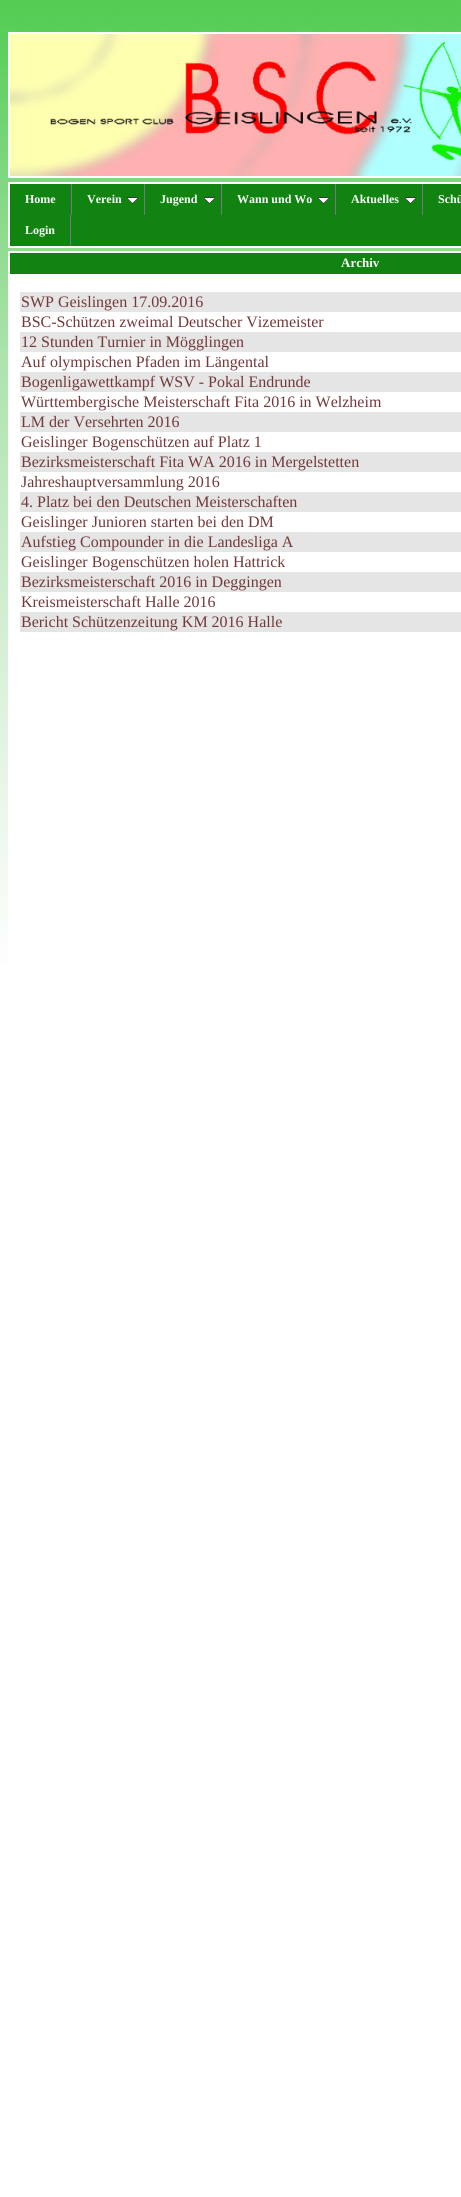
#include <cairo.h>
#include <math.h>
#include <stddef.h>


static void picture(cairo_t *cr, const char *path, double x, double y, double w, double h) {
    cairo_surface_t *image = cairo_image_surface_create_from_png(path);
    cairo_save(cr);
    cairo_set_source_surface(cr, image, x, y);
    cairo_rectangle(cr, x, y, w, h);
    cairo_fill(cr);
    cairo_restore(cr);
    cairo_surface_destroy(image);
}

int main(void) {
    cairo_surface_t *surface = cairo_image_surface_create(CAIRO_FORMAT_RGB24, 461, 2197);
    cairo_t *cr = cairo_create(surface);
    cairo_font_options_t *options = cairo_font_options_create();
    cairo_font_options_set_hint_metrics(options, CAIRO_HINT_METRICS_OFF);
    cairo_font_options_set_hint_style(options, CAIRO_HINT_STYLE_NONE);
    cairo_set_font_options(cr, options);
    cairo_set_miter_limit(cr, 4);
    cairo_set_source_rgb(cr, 1, 1, 1);
    cairo_paint(cr);
    picture(cr, "img1.png", 0, 0, 461, 965);
    cairo_rectangle(cr, 9, 33, 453, 144);
    cairo_set_source_rgb(cr, 1, 1, 1);
    cairo_stroke(cr);
    picture(cr, "img2.png", 10, 34, 451, 142);
    cairo_rectangle(cr, 8, 182, 453, 66);
    cairo_fill(cr);
    cairo_set_source_rgb(cr, 0.063, 0.514, 0.063);
    cairo_rectangle(cr, 10, 184, 451, 62);
    cairo_fill(cr);
    cairo_set_source_rgb(cr, 0.467, 0.467, 0.533);
    cairo_rectangle(cr, 71, 184, 1, 31);
    cairo_fill(cr);
    cairo_select_font_face(cr, "Liberation Serif", CAIRO_FONT_SLANT_NORMAL, CAIRO_FONT_WEIGHT_BOLD);
    cairo_set_font_size(cr, 12);
    cairo_set_source_rgb(cr, 1, 1, 1);
    cairo_move_to(cr, 25, 203);
    cairo_show_text(cr, "Home");
    cairo_set_source_rgb(cr, 0.467, 0.467, 0.533);
    cairo_rectangle(cr, 144, 184, 1, 31);
    cairo_fill(cr);
    cairo_set_source_rgb(cr, 1, 1, 1);
    cairo_move_to(cr, 87, 203);
    cairo_show_text(cr, "Verein");
    picture(cr, "img3.png", 127, 197, 11, 7);
    cairo_set_source_rgb(cr, 0.467, 0.467, 0.533);
    cairo_rectangle(cr, 221, 184, 1, 31);
    cairo_fill(cr);
    cairo_set_source_rgb(cr, 1, 1, 1);
    cairo_move_to(cr, 160, 203);
    cairo_show_text(cr, "Jugend");
    picture(cr, "img3.png", 204, 197, 11, 7);
    cairo_set_source_rgb(cr, 0.467, 0.467, 0.533);
    cairo_rectangle(cr, 335, 184, 1, 31);
    cairo_fill(cr);
    cairo_set_source_rgb(cr, 1, 1, 1);
    cairo_move_to(cr, 237, 203);
    cairo_show_text(cr, "Wann und Wo");
    picture(cr, "img3.png", 318, 197, 11, 7);
    cairo_set_source_rgb(cr, 0.467, 0.467, 0.533);
    cairo_rectangle(cr, 422, 184, 1, 31);
    cairo_fill(cr);
    cairo_set_source_rgb(cr, 1, 1, 1);
    cairo_move_to(cr, 351, 203);
    cairo_show_text(cr, "Aktuelles");
    picture(cr, "img3.png", 405, 197, 11, 7);
    cairo_move_to(cr, 438, 203);
    cairo_show_text(cr, "Schü");
    cairo_set_source_rgb(cr, 0.467, 0.467, 0.533);
    cairo_rectangle(cr, 70, 215, 1, 31);
    cairo_fill(cr);
    cairo_set_source_rgb(cr, 1, 1, 1);
    cairo_move_to(cr, 25, 234);
    cairo_show_text(cr, "Login");
    cairo_rectangle(cr, 8, 251, 453, 714);
    cairo_fill(cr);
    cairo_set_source_rgb(cr, 0.063, 0.514, 0.063);
    cairo_rectangle(cr, 10, 253, 451, 21);
    cairo_fill(cr);
    cairo_set_font_size(cr, 13);
    cairo_set_source_rgb(cr, 1, 1, 1);
    cairo_move_to(cr, 341, 267);
    cairo_show_text(cr, "Archiv");
    cairo_set_source_rgb(cr, 0.898, 0.898, 0.898);
    cairo_rectangle(cr, 20, 292, 441, 20);
    cairo_fill(cr);
    cairo_select_font_face(cr, "Liberation Serif", CAIRO_FONT_SLANT_NORMAL, CAIRO_FONT_WEIGHT_NORMAL);
    cairo_set_font_size(cr, 16);
    cairo_set_source_rgb(cr, 0.447, 0.224, 0.224);
    cairo_move_to(cr, 21, 307);
    cairo_show_text(cr, "SWP Geislingen 17.09.2016");
    cairo_move_to(cr, 21, 327);
    cairo_show_text(cr, "BSC-Schützen zweimal Deutscher Vizemeister");
    cairo_set_source_rgb(cr, 0.898, 0.898, 0.898);
    cairo_rectangle(cr, 20, 332, 441, 20);
    cairo_fill(cr);
    cairo_set_source_rgb(cr, 0.447, 0.224, 0.224);
    cairo_move_to(cr, 21, 347);
    cairo_show_text(cr, "12 Stunden Turnier in Mögglingen");
    cairo_move_to(cr, 21, 367);
    cairo_show_text(cr, "Auf olympischen Pfaden im Längental");
    cairo_set_source_rgb(cr, 0.898, 0.898, 0.898);
    cairo_rectangle(cr, 20, 372, 441, 20);
    cairo_fill(cr);
    cairo_set_source_rgb(cr, 0.447, 0.224, 0.224);
    cairo_move_to(cr, 21, 387);
    cairo_show_text(cr, "Bogenligawettkampf WSV - Pokal Endrunde");
    cairo_move_to(cr, 21, 407);
    cairo_show_text(cr, "Württembergische Meisterschaft Fita 2016 in Welzheim");
    cairo_set_source_rgb(cr, 0.898, 0.898, 0.898);
    cairo_rectangle(cr, 20, 412, 441, 20);
    cairo_fill(cr);
    cairo_set_source_rgb(cr, 0.447, 0.224, 0.224);
    cairo_move_to(cr, 21, 427);
    cairo_show_text(cr, "LM der Versehrten 2016");
    cairo_move_to(cr, 21, 447);
    cairo_show_text(cr, "Geislinger Bogenschützen auf Platz 1");
    cairo_set_source_rgb(cr, 0.898, 0.898, 0.898);
    cairo_rectangle(cr, 20, 452, 441, 20);
    cairo_fill(cr);
    cairo_set_source_rgb(cr, 0.447, 0.224, 0.224);
    cairo_move_to(cr, 21, 467);
    cairo_show_text(cr, "Bezirksmeisterschaft Fita WA 2016 in Mergelstetten");
    cairo_move_to(cr, 21, 487);
    cairo_show_text(cr, "Jahreshauptversammlung 2016");
    cairo_set_source_rgb(cr, 0.898, 0.898, 0.898);
    cairo_rectangle(cr, 20, 492, 441, 20);
    cairo_fill(cr);
    cairo_set_source_rgb(cr, 0.447, 0.224, 0.224);
    cairo_move_to(cr, 21, 507);
    cairo_show_text(cr, "4. Platz bei den Deutschen Meisterschaften");
    cairo_move_to(cr, 21, 527);
    cairo_show_text(cr, "Geislinger Junioren starten bei den DM");
    cairo_set_source_rgb(cr, 0.898, 0.898, 0.898);
    cairo_rectangle(cr, 20, 532, 441, 20);
    cairo_fill(cr);
    cairo_set_source_rgb(cr, 0.447, 0.224, 0.224);
    cairo_move_to(cr, 21, 547);
    cairo_show_text(cr, "Aufstieg Compounder in die Landesliga A");
    cairo_move_to(cr, 21, 567);
    cairo_show_text(cr, "Geislinger Bogenschützen holen Hattrick");
    cairo_set_source_rgb(cr, 0.898, 0.898, 0.898);
    cairo_rectangle(cr, 20, 572, 441, 20);
    cairo_fill(cr);
    cairo_set_source_rgb(cr, 0.447, 0.224, 0.224);
    cairo_move_to(cr, 21, 587);
    cairo_show_text(cr, "Bezirksmeisterschaft 2016 in Deggingen");
    cairo_move_to(cr, 21, 607);
    cairo_show_text(cr, "Kreismeisterschaft Halle 2016");
    cairo_set_source_rgb(cr, 0.898, 0.898, 0.898);
    cairo_rectangle(cr, 20, 612, 441, 20);
    cairo_fill(cr);
    cairo_set_source_rgb(cr, 0.447, 0.224, 0.224);
    cairo_move_to(cr, 21, 627);
    cairo_show_text(cr, "Bericht Schützenzeitung KM 2016 Halle");
    cairo_surface_write_to_png(surface, "page.png");
    cairo_font_options_destroy(options);
    cairo_destroy(cr);
    cairo_surface_destroy(surface);
    return 0;
}
